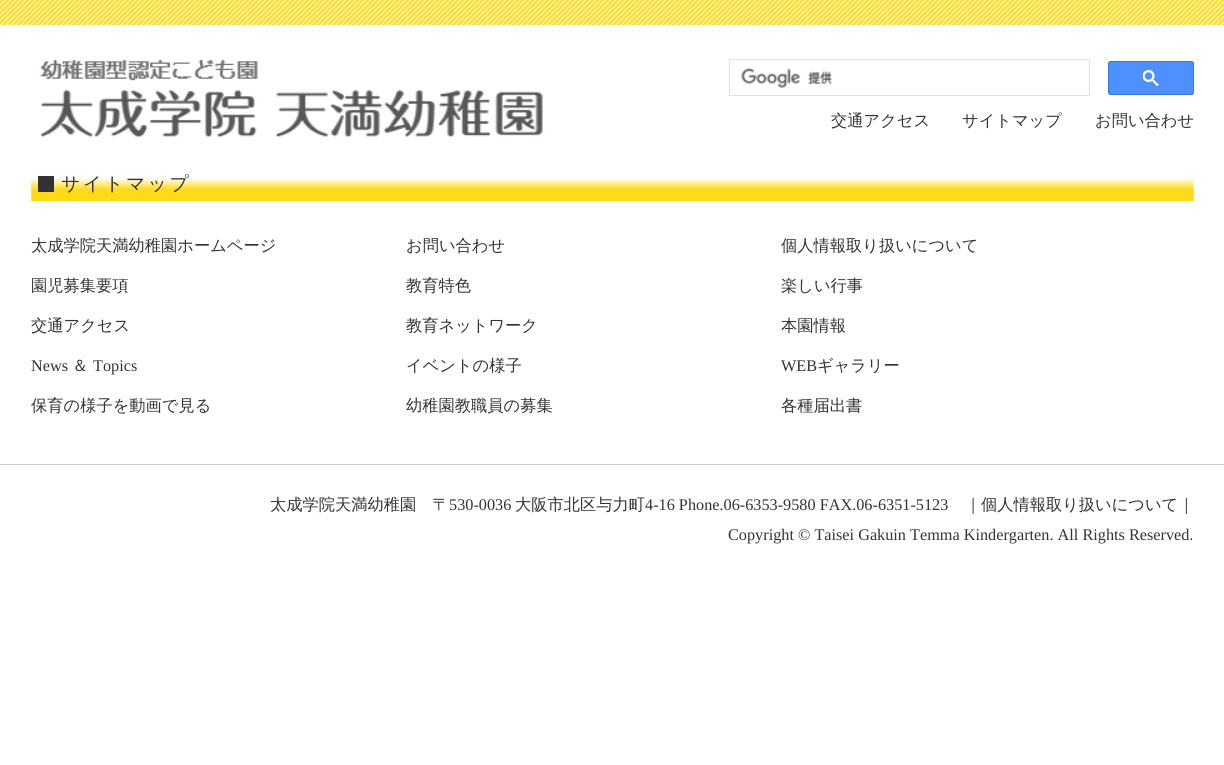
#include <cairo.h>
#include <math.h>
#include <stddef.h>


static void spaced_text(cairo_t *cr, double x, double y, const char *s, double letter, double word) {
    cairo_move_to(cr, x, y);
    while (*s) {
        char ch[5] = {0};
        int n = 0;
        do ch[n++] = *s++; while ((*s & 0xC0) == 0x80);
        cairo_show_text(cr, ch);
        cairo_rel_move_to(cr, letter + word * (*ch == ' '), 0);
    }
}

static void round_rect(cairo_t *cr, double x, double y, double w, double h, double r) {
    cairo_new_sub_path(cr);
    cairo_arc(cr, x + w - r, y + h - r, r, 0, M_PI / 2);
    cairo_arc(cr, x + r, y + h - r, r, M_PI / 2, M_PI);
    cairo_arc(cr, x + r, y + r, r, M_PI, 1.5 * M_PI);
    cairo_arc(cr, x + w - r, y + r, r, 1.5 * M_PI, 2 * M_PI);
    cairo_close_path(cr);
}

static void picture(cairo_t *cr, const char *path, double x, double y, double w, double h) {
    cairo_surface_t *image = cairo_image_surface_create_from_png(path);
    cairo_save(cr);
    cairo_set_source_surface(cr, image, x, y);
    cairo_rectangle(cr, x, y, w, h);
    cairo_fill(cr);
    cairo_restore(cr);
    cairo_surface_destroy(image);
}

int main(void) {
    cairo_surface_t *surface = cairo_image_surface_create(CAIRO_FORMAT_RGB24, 1224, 765);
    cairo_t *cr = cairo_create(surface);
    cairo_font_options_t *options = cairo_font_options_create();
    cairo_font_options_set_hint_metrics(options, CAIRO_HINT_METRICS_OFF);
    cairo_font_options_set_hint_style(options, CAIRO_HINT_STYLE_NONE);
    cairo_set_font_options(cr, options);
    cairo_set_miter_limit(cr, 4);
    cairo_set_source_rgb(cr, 1, 1, 1);
    cairo_paint(cr);
    picture(cr, "img1.png", 0, 0, 1224, 25);
    picture(cr, "img2.png", 40, 59, 503, 79);
    cairo_rectangle(cr, 729.5, 59.5, 360, 36);
    cairo_set_source_rgb(cr, 0.875, 0.882, 0.898);
    cairo_set_line_width(cr, 1);
    cairo_stroke(cr);
    picture(cr, "img3.png", 741, 68, 92, 20);
    cairo_set_source_rgb(cr, 0.302, 0.565, 0.996);
    round_rect(cr, 1108.5, 61.5, 85, 33, 2);
    cairo_fill_preserve(cr);
    cairo_set_source_rgb(cr, 0.188, 0.475, 0.929);
    cairo_stroke(cr);
    picture(cr, "img4.png", 1143, 70, 16, 16);
    cairo_select_font_face(cr, "WenQuanYi Zen Hei Medium", CAIRO_FONT_SLANT_NORMAL, CAIRO_FONT_WEIGHT_NORMAL);
    cairo_set_font_size(cr, 16.25);
    cairo_set_source_rgb(cr, 0.2, 0.2, 0.2);
    cairo_move_to(cr, 831, 126);
    cairo_show_text(cr, "交通アクセス");
    cairo_move_to(cr, 962, 126);
    cairo_show_text(cr, "サイトマップ");
    cairo_move_to(cr, 1095, 126);
    cairo_show_text(cr, "お問い合わせ");
    picture(cr, "img5.png", 31, 177, 1163, 25);
    cairo_rectangle(cr, 38, 176, 16, 16);
    cairo_fill(cr);
    cairo_set_font_size(cr, 18.75);
    spaced_text(cr, 61, 190, "サイトマップ", 2.5, 0);
    cairo_set_font_size(cr, 16.25);
    cairo_move_to(cr, 31, 251);
    cairo_show_text(cr, "太成学院天満幼稚園ホームページ");
    cairo_move_to(cr, 406, 251);
    cairo_show_text(cr, "お問い合わせ");
    cairo_move_to(cr, 781, 251);
    cairo_show_text(cr, "個人情報取り扱いについて");
    cairo_move_to(cr, 31, 291);
    cairo_show_text(cr, "園児募集要項");
    cairo_move_to(cr, 406, 291);
    cairo_show_text(cr, "教育特色");
    cairo_move_to(cr, 781, 291);
    cairo_show_text(cr, "楽しい行事");
    cairo_move_to(cr, 31, 331);
    cairo_show_text(cr, "交通アクセス");
    cairo_move_to(cr, 406, 331);
    cairo_show_text(cr, "教育ネットワーク");
    cairo_move_to(cr, 781, 331);
    cairo_show_text(cr, "本園情報");
    cairo_select_font_face(cr, "Liberation Serif", CAIRO_FONT_SLANT_NORMAL, CAIRO_FONT_WEIGHT_NORMAL);
    cairo_move_to(cr, 31, 371);
    cairo_show_text(cr, "News");
    cairo_select_font_face(cr, "WenQuanYi Zen Hei Medium", CAIRO_FONT_SLANT_NORMAL, CAIRO_FONT_WEIGHT_NORMAL);
    cairo_move_to(cr, 72, 371);
    cairo_show_text(cr, "＆");
    cairo_select_font_face(cr, "Liberation Serif", CAIRO_FONT_SLANT_NORMAL, CAIRO_FONT_WEIGHT_NORMAL);
    cairo_move_to(cr, 93, 371);
    cairo_show_text(cr, "Topics");
    cairo_select_font_face(cr, "WenQuanYi Zen Hei Medium", CAIRO_FONT_SLANT_NORMAL, CAIRO_FONT_WEIGHT_NORMAL);
    cairo_move_to(cr, 406, 371);
    cairo_show_text(cr, "イベントの様子");
    cairo_select_font_face(cr, "Liberation Serif", CAIRO_FONT_SLANT_NORMAL, CAIRO_FONT_WEIGHT_NORMAL);
    cairo_move_to(cr, 781, 371);
    cairo_show_text(cr, "WEB");
    cairo_select_font_face(cr, "WenQuanYi Zen Hei Medium", CAIRO_FONT_SLANT_NORMAL, CAIRO_FONT_WEIGHT_NORMAL);
    cairo_move_to(cr, 817, 371);
    cairo_show_text(cr, "ギャラリー");
    cairo_move_to(cr, 31, 411);
    cairo_show_text(cr, "保育の様子を動画で見る");
    cairo_move_to(cr, 406, 411);
    cairo_show_text(cr, "幼稚園教職員の募集");
    cairo_move_to(cr, 781, 411);
    cairo_show_text(cr, "各種届出書");
    cairo_set_source_rgb(cr, 0.8, 0.8, 0.8);
    cairo_rectangle(cr, 0, 464, 1224, 1);
    cairo_fill(cr);
    cairo_set_source_rgb(cr, 0.2, 0.2, 0.2);
    cairo_move_to(cr, 270, 510);
    cairo_show_text(cr, "太成学院天満幼稚園　〒");
    cairo_select_font_face(cr, "Liberation Serif", CAIRO_FONT_SLANT_NORMAL, CAIRO_FONT_WEIGHT_NORMAL);
    cairo_move_to(cr, 449, 510);
    cairo_show_text(cr, "530-0036");
    cairo_select_font_face(cr, "WenQuanYi Zen Hei Medium", CAIRO_FONT_SLANT_NORMAL, CAIRO_FONT_WEIGHT_NORMAL);
    cairo_move_to(cr, 515, 510);
    cairo_show_text(cr, "大阪市北区与力町");
    cairo_select_font_face(cr, "Liberation Serif", CAIRO_FONT_SLANT_NORMAL, CAIRO_FONT_WEIGHT_NORMAL);
    cairo_move_to(cr, 645, 510);
    cairo_show_text(cr, "4-16 Phone.06-6353-9580 FAX.06-6351-5123");
    cairo_select_font_face(cr, "WenQuanYi Zen Hei Medium", CAIRO_FONT_SLANT_NORMAL, CAIRO_FONT_WEIGHT_NORMAL);
    cairo_move_to(cr, 965, 510);
    cairo_show_text(cr, "｜個人情報取り扱いについて｜");
    cairo_select_font_face(cr, "Liberation Serif", CAIRO_FONT_SLANT_NORMAL, CAIRO_FONT_WEIGHT_NORMAL);
    cairo_move_to(cr, 728, 540);
    cairo_show_text(cr, "Copyright © Taisei Gakuin Temma Kindergarten. All Rights Reserved.");
    cairo_surface_write_to_png(surface, "page.png");
    cairo_font_options_destroy(options);
    cairo_destroy(cr);
    cairo_surface_destroy(surface);
    return 0;
}
